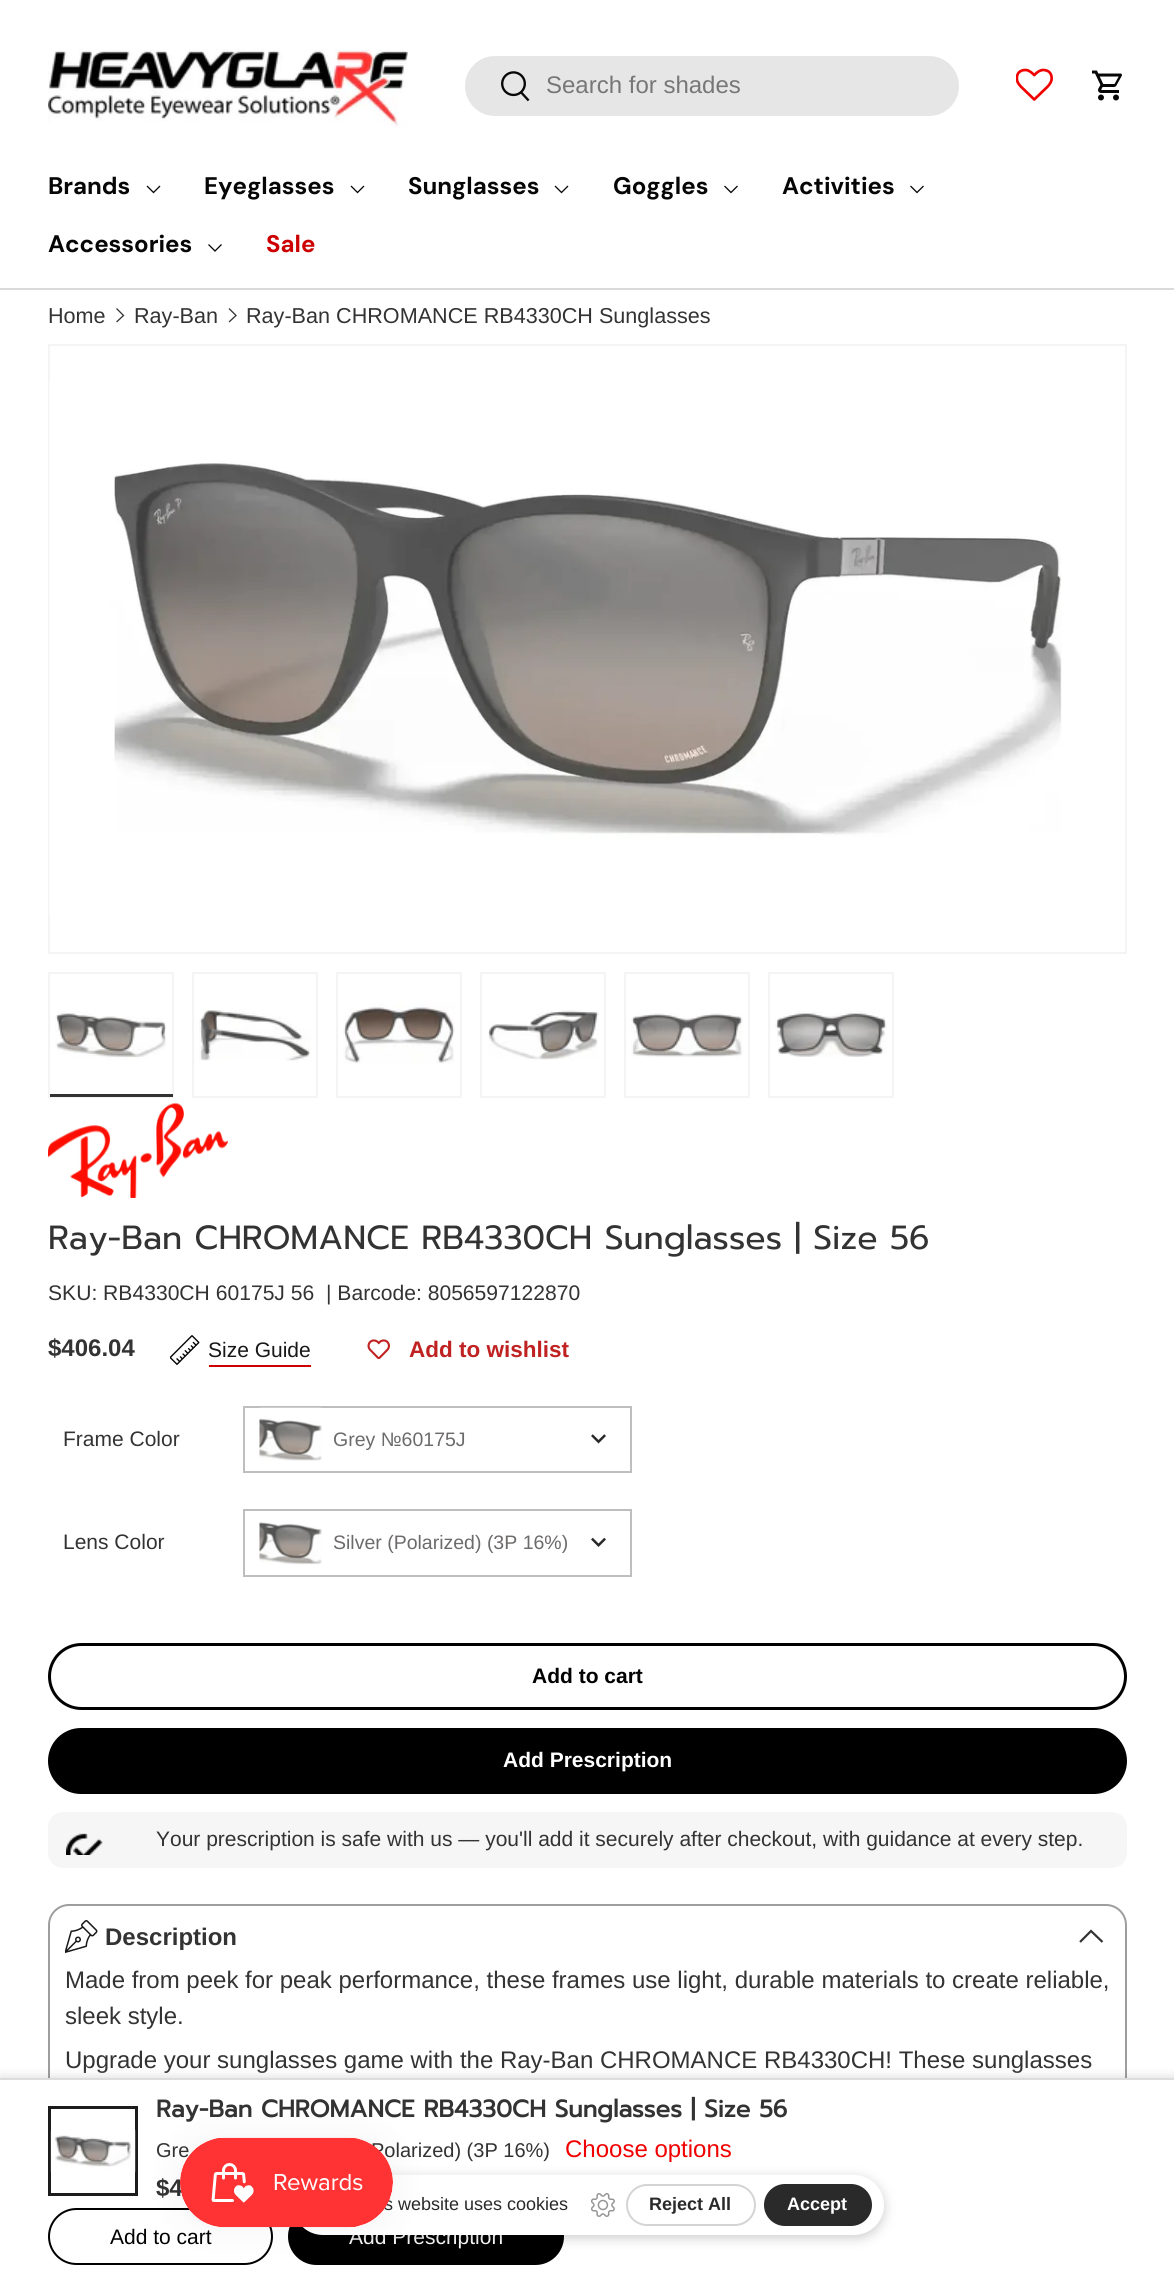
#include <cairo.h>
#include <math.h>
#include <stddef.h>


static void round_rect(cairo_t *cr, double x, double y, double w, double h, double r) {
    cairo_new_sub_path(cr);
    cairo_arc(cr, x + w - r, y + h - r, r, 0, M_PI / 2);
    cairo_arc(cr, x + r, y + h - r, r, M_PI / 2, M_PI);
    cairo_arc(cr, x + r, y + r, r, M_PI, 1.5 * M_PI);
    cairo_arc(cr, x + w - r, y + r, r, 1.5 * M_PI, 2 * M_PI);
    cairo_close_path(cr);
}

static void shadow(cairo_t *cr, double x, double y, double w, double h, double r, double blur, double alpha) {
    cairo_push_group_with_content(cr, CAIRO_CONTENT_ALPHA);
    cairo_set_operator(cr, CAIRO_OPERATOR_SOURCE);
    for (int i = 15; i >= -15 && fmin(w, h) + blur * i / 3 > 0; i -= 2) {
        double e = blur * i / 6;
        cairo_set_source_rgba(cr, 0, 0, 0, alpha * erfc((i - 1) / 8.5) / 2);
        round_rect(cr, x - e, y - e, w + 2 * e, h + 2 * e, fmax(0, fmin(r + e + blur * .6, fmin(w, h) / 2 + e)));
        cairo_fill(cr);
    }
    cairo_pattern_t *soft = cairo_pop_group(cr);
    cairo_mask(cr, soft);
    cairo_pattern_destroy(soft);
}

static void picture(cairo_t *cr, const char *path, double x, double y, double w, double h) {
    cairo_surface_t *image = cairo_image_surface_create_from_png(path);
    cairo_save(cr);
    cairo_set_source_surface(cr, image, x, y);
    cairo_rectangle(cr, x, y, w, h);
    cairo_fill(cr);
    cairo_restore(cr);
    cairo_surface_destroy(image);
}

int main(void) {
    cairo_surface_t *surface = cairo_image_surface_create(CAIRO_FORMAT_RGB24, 1174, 2280);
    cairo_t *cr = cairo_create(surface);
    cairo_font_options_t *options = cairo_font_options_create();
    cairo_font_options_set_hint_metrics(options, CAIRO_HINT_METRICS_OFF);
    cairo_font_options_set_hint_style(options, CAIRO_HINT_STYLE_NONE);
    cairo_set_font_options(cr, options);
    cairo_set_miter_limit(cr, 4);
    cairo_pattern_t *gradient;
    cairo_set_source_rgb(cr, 1, 1, 1);
    cairo_paint(cr);
    cairo_set_source_rgb(cr, 0.855, 0.855, 0.855);
    cairo_rectangle(cr, 0, 288, 1174, 2);
    cairo_fill(cr);
    picture(cr, "img1.png", 48, 49, 360, 78);
    cairo_set_source_rgb(cr, 0.902, 0.902, 0.902);
    round_rect(cr, 465, 56, 494, 60, 30);
    cairo_fill(cr);
    picture(cr, "img2.png", 501, 71, 29, 31);
    cairo_select_font_face(cr, "Liberation Sans", CAIRO_FONT_SLANT_NORMAL, CAIRO_FONT_WEIGHT_NORMAL);
    cairo_set_font_size(cr, 24);
    cairo_set_source_rgb(cr, 0.467, 0.467, 0.467);
    cairo_move_to(cr, 546, 93);
    cairo_show_text(cr, "Search for shades");
    picture(cr, "img3.png", 1016, 68, 37, 33);
    picture(cr, "img4.png", 1092, 70, 30, 31);
    cairo_select_font_face(cr, "DM Sans", CAIRO_FONT_SLANT_NORMAL, CAIRO_FONT_WEIGHT_BOLD);
    cairo_set_source_rgb(cr, 0.027, 0.027, 0.027);
    cairo_move_to(cr, 48, 194);
    cairo_show_text(cr, "Brands");
    cairo_new_path(cr);
    cairo_move_to(cr, 160, 186);
    cairo_line_to(cr, 153.5, 192.5);
    cairo_line_to(cr, 147, 186);
    cairo_set_line_width(cr, 1.3);
    cairo_stroke(cr);
    cairo_move_to(cr, 204, 194);
    cairo_show_text(cr, "Eyeglasses");
    cairo_new_path(cr);
    cairo_move_to(cr, 364, 186);
    cairo_line_to(cr, 357.5, 192.5);
    cairo_line_to(cr, 351, 186);
    cairo_stroke(cr);
    cairo_move_to(cr, 408, 194);
    cairo_show_text(cr, "Sunglasses");
    cairo_new_path(cr);
    cairo_move_to(cr, 568, 186);
    cairo_line_to(cr, 561.5, 192.5);
    cairo_line_to(cr, 555, 186);
    cairo_stroke(cr);
    cairo_move_to(cr, 613, 194);
    cairo_show_text(cr, "Goggles");
    cairo_new_path(cr);
    cairo_move_to(cr, 737.5, 186);
    cairo_line_to(cr, 731, 192.5);
    cairo_line_to(cr, 724.5, 186);
    cairo_stroke(cr);
    cairo_move_to(cr, 782, 194);
    cairo_show_text(cr, "Activities");
    cairo_new_path(cr);
    cairo_move_to(cr, 923.5, 186);
    cairo_line_to(cr, 917, 192.5);
    cairo_line_to(cr, 910.5, 186);
    cairo_stroke(cr);
    cairo_move_to(cr, 48, 252);
    cairo_show_text(cr, "Accessories");
    cairo_new_path(cr);
    cairo_move_to(cr, 221.5, 244.5);
    cairo_line_to(cr, 215, 251);
    cairo_line_to(cr, 208.5, 244.5);
    cairo_stroke(cr);
    cairo_set_source_rgb(cr, 0.8, 0, 0);
    cairo_move_to(cr, 266, 252);
    cairo_show_text(cr, "Sale");
    cairo_select_font_face(cr, "Liberation Sans", CAIRO_FONT_SLANT_NORMAL, CAIRO_FONT_WEIGHT_NORMAL);
    cairo_set_font_size(cr, 21.6);
    cairo_set_source_rgb(cr, 0.2, 0.2, 0.2);
    cairo_move_to(cr, 48, 323);
    cairo_show_text(cr, "Home");
    cairo_new_path(cr);
    cairo_move_to(cr, 116.5, 308.5);
    cairo_line_to(cr, 123.5, 315.5);
    cairo_line_to(cr, 116.5, 322);
    cairo_stroke(cr);
    cairo_move_to(cr, 134, 323);
    cairo_show_text(cr, "Ray-Ban");
    cairo_new_path(cr);
    cairo_move_to(cr, 229, 308.5);
    cairo_line_to(cr, 236, 315.5);
    cairo_line_to(cr, 229, 322);
    cairo_stroke(cr);
    cairo_move_to(cr, 246, 323);
    cairo_show_text(cr, "Ray-Ban CHROMANCE RB4330CH Sunglasses");
    cairo_rectangle(cr, 49, 345, 1077, 608);
    cairo_set_source_rgb(cr, 0.957, 0.957, 0.957);
    cairo_set_line_width(cr, 2);
    cairo_stroke(cr);
    picture(cr, "img5.png", 49, 379, 1013, 538);
    cairo_rectangle(cr, 49, 973, 124, 124);
    cairo_stroke(cr);
    picture(cr, "img6.png", 55, 1011, 112, 49);
    cairo_set_source_rgb(cr, 0.2, 0.2, 0.2);
    cairo_rectangle(cr, 50, 1094, 123, 3);
    cairo_fill(cr);
    cairo_rectangle(cr, 193, 973, 124, 124);
    cairo_set_source_rgb(cr, 0.957, 0.957, 0.957);
    cairo_stroke(cr);
    picture(cr, "img7.png", 199, 1010, 112, 51);
    cairo_rectangle(cr, 337, 973, 124, 124);
    cairo_stroke(cr);
    picture(cr, "img8.png", 343, 1003, 112, 61);
    cairo_rectangle(cr, 481, 973, 124, 124);
    cairo_stroke(cr);
    picture(cr, "img9.png", 488, 1010, 111, 50);
    cairo_rectangle(cr, 625, 973, 124, 124);
    cairo_stroke(cr);
    picture(cr, "img10.png", 631, 1013, 112, 45);
    cairo_rectangle(cr, 769, 973, 124, 124);
    cairo_stroke(cr);
    picture(cr, "img11.png", 775, 1011, 112, 46);
    picture(cr, "img12.png", 48, 1103, 180, 95);
    cairo_select_font_face(cr, "Prompt", CAIRO_FONT_SLANT_NORMAL, CAIRO_FONT_WEIGHT_NORMAL);
    cairo_set_font_size(cr, 33.5);
    cairo_set_source_rgb(cr, 0.2, 0.2, 0.2);
    cairo_move_to(cr, 48, 1249);
    cairo_show_text(cr, "Ray-Ban CHROMANCE RB4330CH Sunglasses | Size 56");
    cairo_select_font_face(cr, "Liberation Sans", CAIRO_FONT_SLANT_NORMAL, CAIRO_FONT_WEIGHT_NORMAL);
    cairo_set_font_size(cr, 21.1);
    cairo_move_to(cr, 48, 1300);
    cairo_show_text(cr, "SKU: RB4330CH 60175J 56");
    cairo_move_to(cr, 326, 1300);
    cairo_show_text(cr, "| Barcode: 8056597122870");
    cairo_select_font_face(cr, "Liberation Sans", CAIRO_FONT_SLANT_NORMAL, CAIRO_FONT_WEIGHT_BOLD);
    cairo_set_font_size(cr, 24);
    cairo_move_to(cr, 48, 1356);
    cairo_show_text(cr, "$406.04");
    picture(cr, "img13.png", 170, 1335, 30, 30);
    cairo_set_source_rgb(cr, 0.8, 0, 0);
    cairo_rectangle(cr, 209, 1365, 102, 2);
    cairo_fill(cr);
    cairo_select_font_face(cr, "Liberation Sans", CAIRO_FONT_SLANT_NORMAL, CAIRO_FONT_WEIGHT_NORMAL);
    cairo_set_font_size(cr, 21);
    cairo_set_source_rgb(cr, 0.094, 0.094, 0.094);
    cairo_move_to(cr, 208, 1357);
    cairo_show_text(cr, "Size Guide");
    picture(cr, "img14.png", 367, 1339, 23, 21);
    cairo_select_font_face(cr, "Liberation Sans", CAIRO_FONT_SLANT_NORMAL, CAIRO_FONT_WEIGHT_BOLD);
    cairo_set_font_size(cr, 22.5);
    cairo_set_source_rgb(cr, 0.753, 0.133, 0.133);
    cairo_move_to(cr, 409, 1357);
    cairo_show_text(cr, "Add to wishlist");
    cairo_select_font_face(cr, "Liberation Sans", CAIRO_FONT_SLANT_NORMAL, CAIRO_FONT_WEIGHT_NORMAL);
    cairo_set_font_size(cr, 21);
    cairo_set_source_rgb(cr, 0.2, 0.2, 0.2);
    cairo_move_to(cr, 63, 1446);
    cairo_show_text(cr, "Frame Color");
    cairo_rectangle(cr, 244, 1407, 387, 65);
    cairo_set_source_rgb(cr, 0.745, 0.745, 0.745);
    cairo_stroke(cr);
    picture(cr, "img15.png", 259, 1407, 63, 54);
    cairo_set_font_size(cr, 19.5);
    cairo_set_source_rgb(cr, 0.427, 0.416, 0.416);
    cairo_move_to(cr, 333, 1446);
    cairo_show_text(cr, "Grey №60175J");
    picture(cr, "img16.png", 591, 1434, 15, 10);
    cairo_set_font_size(cr, 21);
    cairo_set_source_rgb(cr, 0.2, 0.2, 0.2);
    cairo_move_to(cr, 63, 1549);
    cairo_show_text(cr, "Lens Color");
    cairo_rectangle(cr, 244, 1510, 387, 66);
    cairo_set_source_rgb(cr, 0.745, 0.745, 0.745);
    cairo_stroke(cr);
    picture(cr, "img17.png", 259, 1522, 63, 43);
    cairo_set_font_size(cr, 19.5);
    cairo_set_source_rgb(cr, 0.427, 0.416, 0.416);
    cairo_move_to(cr, 333, 1549);
    cairo_show_text(cr, "Silver (Polarized) (3P 16%)");
    picture(cr, "img18.png", 591, 1537, 15, 10);
    round_rect(cr, 49.5, 1644.5, 1076, 64, 32);
    cairo_set_source_rgb(cr, 0, 0, 0);
    cairo_set_line_width(cr, 3);
    cairo_stroke(cr);
    cairo_select_font_face(cr, "Liberation Sans", CAIRO_FONT_SLANT_NORMAL, CAIRO_FONT_WEIGHT_BOLD);
    cairo_set_font_size(cr, 21);
    cairo_move_to(cr, 532, 1683);
    cairo_show_text(cr, "Add to cart");
    round_rect(cr, 48, 1728, 1079, 66, 33);
    cairo_fill(cr);
    cairo_set_source_rgb(cr, 1, 1, 1);
    cairo_move_to(cr, 503, 1767);
    cairo_show_text(cr, "Add Prescription");
    cairo_set_source_rgb(cr, 0.961, 0.961, 0.961);
    round_rect(cr, 48, 1812, 1079, 56, 15);
    cairo_fill(cr);
    picture(cr, "img19.png", 66, 1833, 37, 22);
    cairo_select_font_face(cr, "Liberation Sans", CAIRO_FONT_SLANT_NORMAL, CAIRO_FONT_WEIGHT_NORMAL);
    cairo_set_source_rgb(cr, 0.2, 0.2, 0.2);
    cairo_move_to(cr, 156, 1846);
    cairo_show_text(cr, "Your prescription is safe with us — you'll add it securely after checkout, with guidance at every step.");
    round_rect(cr, 49, 1905, 1077, 265, 20);
    cairo_set_source_rgb(cr, 0.62, 0.62, 0.62);
    cairo_set_line_width(cr, 2);
    cairo_stroke(cr);
    picture(cr, "img20.png", 65, 1920, 33, 33);
    cairo_select_font_face(cr, "Liberation Sans", CAIRO_FONT_SLANT_NORMAL, CAIRO_FONT_WEIGHT_BOLD);
    cairo_set_font_size(cr, 24);
    cairo_set_source_rgb(cr, 0.2, 0.2, 0.2);
    cairo_move_to(cr, 105, 1945);
    cairo_show_text(cr, "Description");
    cairo_new_path(cr);
    cairo_move_to(cr, 1080, 1942);
    cairo_line_to(cr, 1091, 1931);
    cairo_line_to(cr, 1102.5, 1942);
    cairo_set_line_width(cr, 2.2);
    cairo_stroke(cr);
    cairo_select_font_face(cr, "Liberation Sans", CAIRO_FONT_SLANT_NORMAL, CAIRO_FONT_WEIGHT_NORMAL);
    cairo_move_to(cr, 65, 1988);
    cairo_show_text(cr, "Made from peek for peak performance, these frames use light, durable materials to create reliable,");
    cairo_move_to(cr, 65, 2024);
    cairo_show_text(cr, "sleek style.");
    cairo_move_to(cr, 65, 2068);
    cairo_show_text(cr, "Upgrade your sunglasses game with the Ray-Ban CHROMANCE RB4330CH! These sunglasses");
    gradient = cairo_pattern_create_linear(587, 2069, 587, 2114);
    cairo_pattern_add_color_stop_rgba(gradient, 0, 1, 1, 1, 0);
    cairo_pattern_add_color_stop_rgba(gradient, 1, 1, 1, 1, 1);
    cairo_set_source(cr, gradient);
    cairo_pattern_destroy(gradient);
    cairo_rectangle(cr, 83, 2070, 938, 3);
    cairo_fill(cr);
    cairo_set_source_rgb(cr, 0, 0, 0);
    shadow(cr, 0, 2075, 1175, 202, 0, 4, 0.1);
    cairo_set_source_rgb(cr, 1, 1, 1);
    cairo_rectangle(cr, 0, 2080, 1174, 200);
    cairo_fill(cr);
    cairo_set_source_rgb(cr, 0.867, 0.867, 0.867);
    cairo_rectangle(cr, 0, 2078, 1174, 2);
    cairo_fill(cr);
    cairo_rectangle(cr, 49.5, 2107.5, 87, 87);
    cairo_set_source_rgb(cr, 0.11, 0.11, 0.11);
    cairo_set_line_width(cr, 3);
    cairo_stroke(cr);
    picture(cr, "img21.png", 50, 2129, 86, 44);
    cairo_select_font_face(cr, "Prompt", CAIRO_FONT_SLANT_NORMAL, CAIRO_FONT_WEIGHT_BOLD);
    cairo_set_source_rgb(cr, 0.2, 0.2, 0.2);
    cairo_move_to(cr, 156, 2117);
    cairo_show_text(cr, "Ray-Ban CHROMANCE RB4330CH Sunglasses | Size 56");
    cairo_select_font_face(cr, "Liberation Sans", CAIRO_FONT_SLANT_NORMAL, CAIRO_FONT_WEIGHT_NORMAL);
    cairo_set_font_size(cr, 20);
    cairo_move_to(cr, 156, 2157);
    cairo_show_text(cr, "Gre");
    cairo_move_to(cr, 371, 2157);
    cairo_show_text(cr, "Polarized) (3P 16%)");
    cairo_set_font_size(cr, 24);
    cairo_set_source_rgb(cr, 0.945, 0, 0);
    cairo_move_to(cr, 565, 2157);
    cairo_show_text(cr, "Choose options");
    cairo_select_font_face(cr, "Liberation Sans", CAIRO_FONT_SLANT_NORMAL, CAIRO_FONT_WEIGHT_BOLD);
    cairo_set_source_rgb(cr, 0.2, 0.2, 0.2);
    cairo_move_to(cr, 156, 2196);
    cairo_show_text(cr, "$4");
    round_rect(cr, 49, 2209, 223, 55, 27.5);
    cairo_set_source_rgb(cr, 0, 0, 0);
    cairo_set_line_width(cr, 2);
    cairo_stroke(cr);
    cairo_select_font_face(cr, "Liberation Sans", CAIRO_FONT_SLANT_NORMAL, CAIRO_FONT_WEIGHT_NORMAL);
    cairo_set_font_size(cr, 21);
    cairo_move_to(cr, 110, 2244);
    cairo_show_text(cr, "Add to cart");
    round_rect(cr, 289, 2209, 274, 55, 27.5);
    cairo_fill_preserve(cr);
    cairo_stroke(cr);
    cairo_set_source_rgb(cr, 1, 1, 1);
    cairo_move_to(cr, 349, 2244);
    cairo_show_text(cr, "Add Prescription");
    cairo_set_source_rgb(cr, 0, 0, 0);
    shadow(cr, 293, 2178, 591, 60, 30, 6, 0.2);
    cairo_set_source_rgb(cr, 1, 1, 1);
    round_rect(cr, 293, 2175, 591, 60, 30);
    cairo_fill(cr);
    cairo_set_source_rgb(cr, 0, 0, 0);
    shadow(cr, 180, 2138, 213, 90, 45, 19, 0.05);
    cairo_set_font_size(cr, 18);
    cairo_set_source_rgb(cr, 0.165, 0.165, 0.165);
    cairo_move_to(cr, 384, 2210);
    cairo_show_text(cr, "s website uses cookies");
    picture(cr, "img22.png", 180, 2137, 213, 91);
    picture(cr, "img23.png", 591, 2193, 24, 24);
    round_rect(cr, 627, 2185, 128, 40, 20);
    cairo_set_source_rgb(cr, 0.831, 0.831, 0.831);
    cairo_stroke(cr);
    cairo_select_font_face(cr, "Liberation Sans", CAIRO_FONT_SLANT_NORMAL, CAIRO_FONT_WEIGHT_BOLD);
    cairo_set_source_rgb(cr, 0.165, 0.165, 0.165);
    cairo_move_to(cr, 649, 2210);
    cairo_show_text(cr, "Reject All");
    round_rect(cr, 764, 2184, 108, 42, 21);
    cairo_fill(cr);
    cairo_set_source_rgb(cr, 1, 1, 1);
    cairo_move_to(cr, 787, 2210);
    cairo_show_text(cr, "Accept");
    cairo_surface_write_to_png(surface, "page.png");
    cairo_font_options_destroy(options);
    cairo_destroy(cr);
    cairo_surface_destroy(surface);
    return 0;
}
